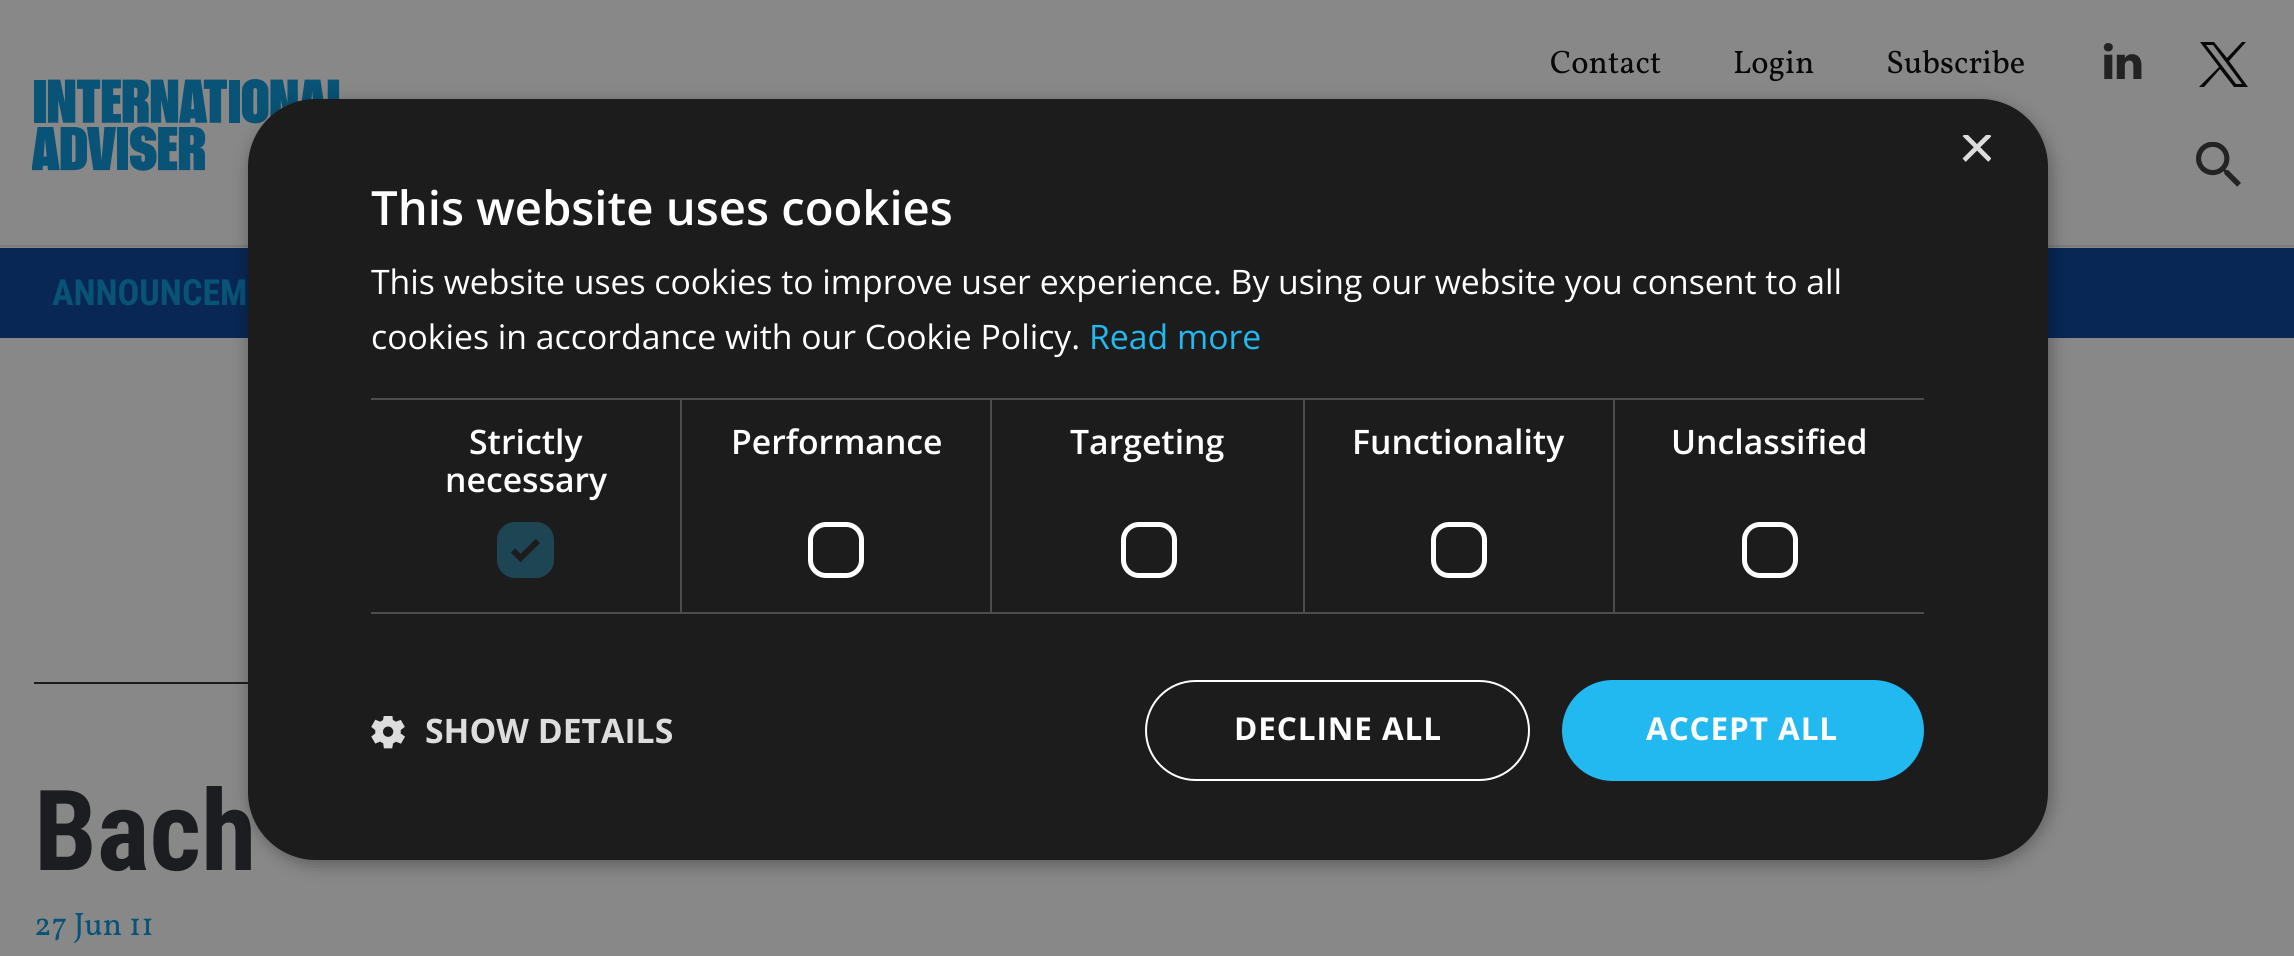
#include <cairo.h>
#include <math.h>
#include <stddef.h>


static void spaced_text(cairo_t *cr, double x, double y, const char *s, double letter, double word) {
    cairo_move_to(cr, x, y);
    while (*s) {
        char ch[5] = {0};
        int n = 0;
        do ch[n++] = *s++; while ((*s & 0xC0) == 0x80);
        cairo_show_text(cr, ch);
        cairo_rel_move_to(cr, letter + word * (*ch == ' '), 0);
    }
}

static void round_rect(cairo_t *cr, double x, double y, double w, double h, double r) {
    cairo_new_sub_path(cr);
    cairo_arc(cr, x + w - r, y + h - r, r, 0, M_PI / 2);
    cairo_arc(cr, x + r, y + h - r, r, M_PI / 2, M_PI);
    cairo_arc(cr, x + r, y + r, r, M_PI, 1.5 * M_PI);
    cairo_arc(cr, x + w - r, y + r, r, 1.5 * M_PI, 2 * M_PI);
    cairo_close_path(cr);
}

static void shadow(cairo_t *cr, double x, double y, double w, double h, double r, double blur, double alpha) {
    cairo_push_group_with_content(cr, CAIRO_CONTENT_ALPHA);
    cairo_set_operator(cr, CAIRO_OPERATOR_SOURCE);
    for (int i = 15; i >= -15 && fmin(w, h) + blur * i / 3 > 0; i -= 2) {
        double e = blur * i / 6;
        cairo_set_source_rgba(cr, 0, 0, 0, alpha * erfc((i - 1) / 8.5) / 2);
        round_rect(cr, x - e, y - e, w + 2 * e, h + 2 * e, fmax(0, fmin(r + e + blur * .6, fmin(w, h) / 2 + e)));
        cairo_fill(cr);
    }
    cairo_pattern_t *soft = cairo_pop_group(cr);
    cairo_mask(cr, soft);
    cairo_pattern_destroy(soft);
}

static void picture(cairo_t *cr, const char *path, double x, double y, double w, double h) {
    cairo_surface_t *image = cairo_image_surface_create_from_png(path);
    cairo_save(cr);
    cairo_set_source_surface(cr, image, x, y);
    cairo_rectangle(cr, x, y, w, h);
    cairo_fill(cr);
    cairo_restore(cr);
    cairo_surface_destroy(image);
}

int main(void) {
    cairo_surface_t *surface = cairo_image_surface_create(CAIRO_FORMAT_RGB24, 2294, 956);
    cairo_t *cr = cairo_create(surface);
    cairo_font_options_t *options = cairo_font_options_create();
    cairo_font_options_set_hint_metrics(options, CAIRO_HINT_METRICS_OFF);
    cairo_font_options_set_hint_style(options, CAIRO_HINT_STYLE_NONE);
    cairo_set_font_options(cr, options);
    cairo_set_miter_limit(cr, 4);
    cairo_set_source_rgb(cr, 0.533, 0.533, 0.533);
    cairo_paint(cr);
    cairo_set_source_rgb(cr, 0.486, 0.486, 0.486);
    cairo_rectangle(cr, 0, 245, 2294, 2);
    cairo_fill(cr);
    cairo_select_font_face(cr, "Vollkorn", CAIRO_FONT_SLANT_NORMAL, CAIRO_FONT_WEIGHT_NORMAL);
    cairo_set_font_size(cr, 32.5);
    cairo_set_source_rgb(cr, 0.035, 0.035, 0.035);
    cairo_move_to(cr, 1550, 73);
    cairo_show_text(cr, "Contact");
    cairo_move_to(cr, 1733, 73);
    cairo_show_text(cr, "Login");
    cairo_move_to(cr, 1886, 73);
    cairo_show_text(cr, "Subscribe");
    picture(cr, "img1.png", 2103, 43, 39, 36);
    cairo_new_path(cr);
    cairo_move_to(cr, 2200, 42);
    cairo_line_to(cr, 2219, 67);
    cairo_line_to(cr, 2199, 87);
    cairo_line_to(cr, 2204, 87);
    cairo_line_to(cr, 2220, 69);
    cairo_line_to(cr, 2234, 87);
    cairo_line_to(cr, 2248, 87);
    cairo_line_to(cr, 2229, 61);
    cairo_line_to(cr, 2246, 42);
    cairo_line_to(cr, 2242, 42);
    cairo_line_to(cr, 2227, 58);
    cairo_line_to(cr, 2214, 42);
    cairo_close_path(cr);
    cairo_move_to(cr, 2206, 45);
    cairo_line_to(cr, 2213, 45);
    cairo_line_to(cr, 2242, 84);
    cairo_line_to(cr, 2236, 84);
    cairo_close_path(cr);
    cairo_fill(cr);
    picture(cr, "img2.png", 2196, 142, 45, 45);
    picture(cr, "img3.png", 32, 79, 308, 92);
    cairo_set_source_rgb(cr, 0.035, 0.153, 0.333);
    cairo_rectangle(cr, 0, 248, 2294, 90);
    cairo_fill(cr);
    cairo_select_font_face(cr, "Roboto Condensed", CAIRO_FONT_SLANT_NORMAL, CAIRO_FONT_WEIGHT_BOLD);
    cairo_set_font_size(cr, 36);
    cairo_set_source_rgb(cr, 0.035, 0.325, 0.463);
    cairo_move_to(cr, 52, 305);
    cairo_show_text(cr, "ANNOUNCEM");
    cairo_set_source_rgb(cr, 0.098, 0.106, 0.114);
    cairo_rectangle(cr, 34, 682, 214, 2);
    cairo_fill(cr);
    cairo_set_font_size(cr, 112);
    cairo_set_source_rgb(cr, 0.106, 0.114, 0.125);
    cairo_move_to(cr, 34, 870);
    cairo_show_text(cr, "Bach");
    cairo_select_font_face(cr, "Vollkorn", CAIRO_FONT_SLANT_NORMAL, CAIRO_FONT_WEIGHT_NORMAL);
    cairo_set_font_size(cr, 32.5);
    cairo_set_source_rgb(cr, 0.035, 0.325, 0.463);
    cairo_move_to(cr, 34, 935);
    cairo_show_text(cr, "27 Jun 11");
    cairo_set_source_rgb(cr, 0, 0, 0);
    shadow(cr, 250, 104, 1800, 760, 68, 9, 0.35);
    cairo_set_source_rgb(cr, 0.11, 0.11, 0.11);
    round_rect(cr, 248, 99, 1800, 761, 68);
    cairo_fill(cr);
    cairo_save(cr);
    cairo_rectangle(cr, 1958, 135, 33, 34);
    cairo_clip(cr);
    cairo_select_font_face(cr, "Liberation Sans", CAIRO_FONT_SLANT_NORMAL, CAIRO_FONT_WEIGHT_NORMAL);
    cairo_set_font_size(cr, 65);
    cairo_set_source_rgb(cr, 0.867, 0.867, 0.867);
    cairo_move_to(cr, 1958, 169);
    cairo_show_text(cr, "×");
    cairo_restore(cr);
    cairo_select_font_face(cr, "Open Sans SemiBold", CAIRO_FONT_SLANT_NORMAL, CAIRO_FONT_WEIGHT_NORMAL);
    cairo_set_font_size(cr, 47.25);
    cairo_set_source_rgb(cr, 1, 1, 1);
    cairo_move_to(cr, 371, 225);
    cairo_show_text(cr, "This website uses cookies");
    cairo_select_font_face(cr, "Open Sans", CAIRO_FONT_SLANT_NORMAL, CAIRO_FONT_WEIGHT_NORMAL);
    cairo_set_font_size(cr, 33.75);
    cairo_move_to(cr, 371, 294);
    cairo_show_text(cr, "This website uses cookies to improve user experience. By using our website you consent to all");
    cairo_move_to(cr, 371, 349);
    cairo_show_text(cr, "cookies in accordance with our Cookie Policy.");
    cairo_set_source_rgb(cr, 0.133, 0.722, 0.941);
    cairo_move_to(cr, 1089, 349);
    cairo_show_text(cr, "Read more");
    cairo_set_source_rgb(cr, 0.302, 0.302, 0.302);
    cairo_rectangle(cr, 371, 398, 1553, 2);
    cairo_fill(cr);
    cairo_rectangle(cr, 680, 398, 2, 216);
    cairo_fill(cr);
    cairo_rectangle(cr, 371, 612, 311, 2);
    cairo_fill(cr);
    cairo_select_font_face(cr, "Open Sans SemiBold", CAIRO_FONT_SLANT_NORMAL, CAIRO_FONT_WEIGHT_NORMAL);
    cairo_set_source_rgb(cr, 1, 1, 1);
    cairo_move_to(cr, 469, 454);
    cairo_show_text(cr, "Strictly");
    cairo_move_to(cr, 445, 492);
    cairo_show_text(cr, "necessary");
    cairo_set_source_rgb(cr, 0.118, 0.271, 0.325);
    round_rect(cr, 497, 522, 57, 56, 18);
    cairo_fill(cr);
    cairo_new_path(cr);
    cairo_move_to(cr, 513, 550.5);
    cairo_line_to(cr, 520.5, 558);
    cairo_line_to(cr, 538, 541);
    cairo_set_source_rgb(cr, 0.11, 0.11, 0.11);
    cairo_set_line_width(cr, 5.9);
    cairo_stroke(cr);
    cairo_set_source_rgb(cr, 0.302, 0.302, 0.302);
    cairo_rectangle(cr, 990, 398, 2, 216);
    cairo_fill(cr);
    cairo_rectangle(cr, 682, 612, 310, 2);
    cairo_fill(cr);
    cairo_set_source_rgb(cr, 1, 1, 1);
    cairo_move_to(cr, 731, 454);
    cairo_show_text(cr, "Performance");
    round_rect(cr, 810.5, 524.5, 51, 51, 15.5);
    cairo_set_line_width(cr, 5);
    cairo_stroke(cr);
    cairo_set_source_rgb(cr, 0.302, 0.302, 0.302);
    cairo_rectangle(cr, 1303, 398, 2, 216);
    cairo_fill(cr);
    cairo_rectangle(cr, 992, 612, 313, 2);
    cairo_fill(cr);
    cairo_set_source_rgb(cr, 1, 1, 1);
    cairo_move_to(cr, 1070, 454);
    cairo_show_text(cr, "Targeting");
    round_rect(cr, 1123.5, 524.5, 51, 51, 15.5);
    cairo_stroke(cr);
    cairo_set_source_rgb(cr, 0.302, 0.302, 0.302);
    cairo_rectangle(cr, 1613, 398, 2, 216);
    cairo_fill(cr);
    cairo_rectangle(cr, 1305, 612, 619, 2);
    cairo_fill(cr);
    cairo_set_source_rgb(cr, 1, 1, 1);
    cairo_move_to(cr, 1352, 454);
    cairo_show_text(cr, "Functionality");
    round_rect(cr, 1433.5, 524.5, 51, 51, 15.5);
    cairo_stroke(cr);
    cairo_move_to(cr, 1671, 454);
    cairo_show_text(cr, "Unclassified");
    round_rect(cr, 1744.5, 524.5, 51, 51, 15.5);
    cairo_stroke(cr);
    picture(cr, "img4.png", 371, 716, 34, 33);
    cairo_select_font_face(cr, "Open Sans", CAIRO_FONT_SLANT_NORMAL, CAIRO_FONT_WEIGHT_BOLD);
    cairo_set_source_rgb(cr, 0.867, 0.867, 0.867);
    cairo_move_to(cr, 425, 743);
    cairo_show_text(cr, "SHOW DETAILS");
    round_rect(cr, 1146, 681, 383, 99, 49.5);
    cairo_set_source_rgb(cr, 1, 1, 1);
    cairo_set_line_width(cr, 2);
    cairo_stroke(cr);
    cairo_set_font_size(cr, 31.5);
    spaced_text(cr, 1234, 740, "DECLINE ALL", 0.9, 0);
    cairo_set_source_rgb(cr, 0.133, 0.722, 0.941);
    round_rect(cr, 1562, 680, 362, 101, 50.5);
    cairo_fill(cr);
    cairo_set_source_rgb(cr, 1, 1, 1);
    spaced_text(cr, 1646, 740, "ACCEPT ALL", 0.9, 0);
    cairo_surface_write_to_png(surface, "page.png");
    cairo_font_options_destroy(options);
    cairo_destroy(cr);
    cairo_surface_destroy(surface);
    return 0;
}
